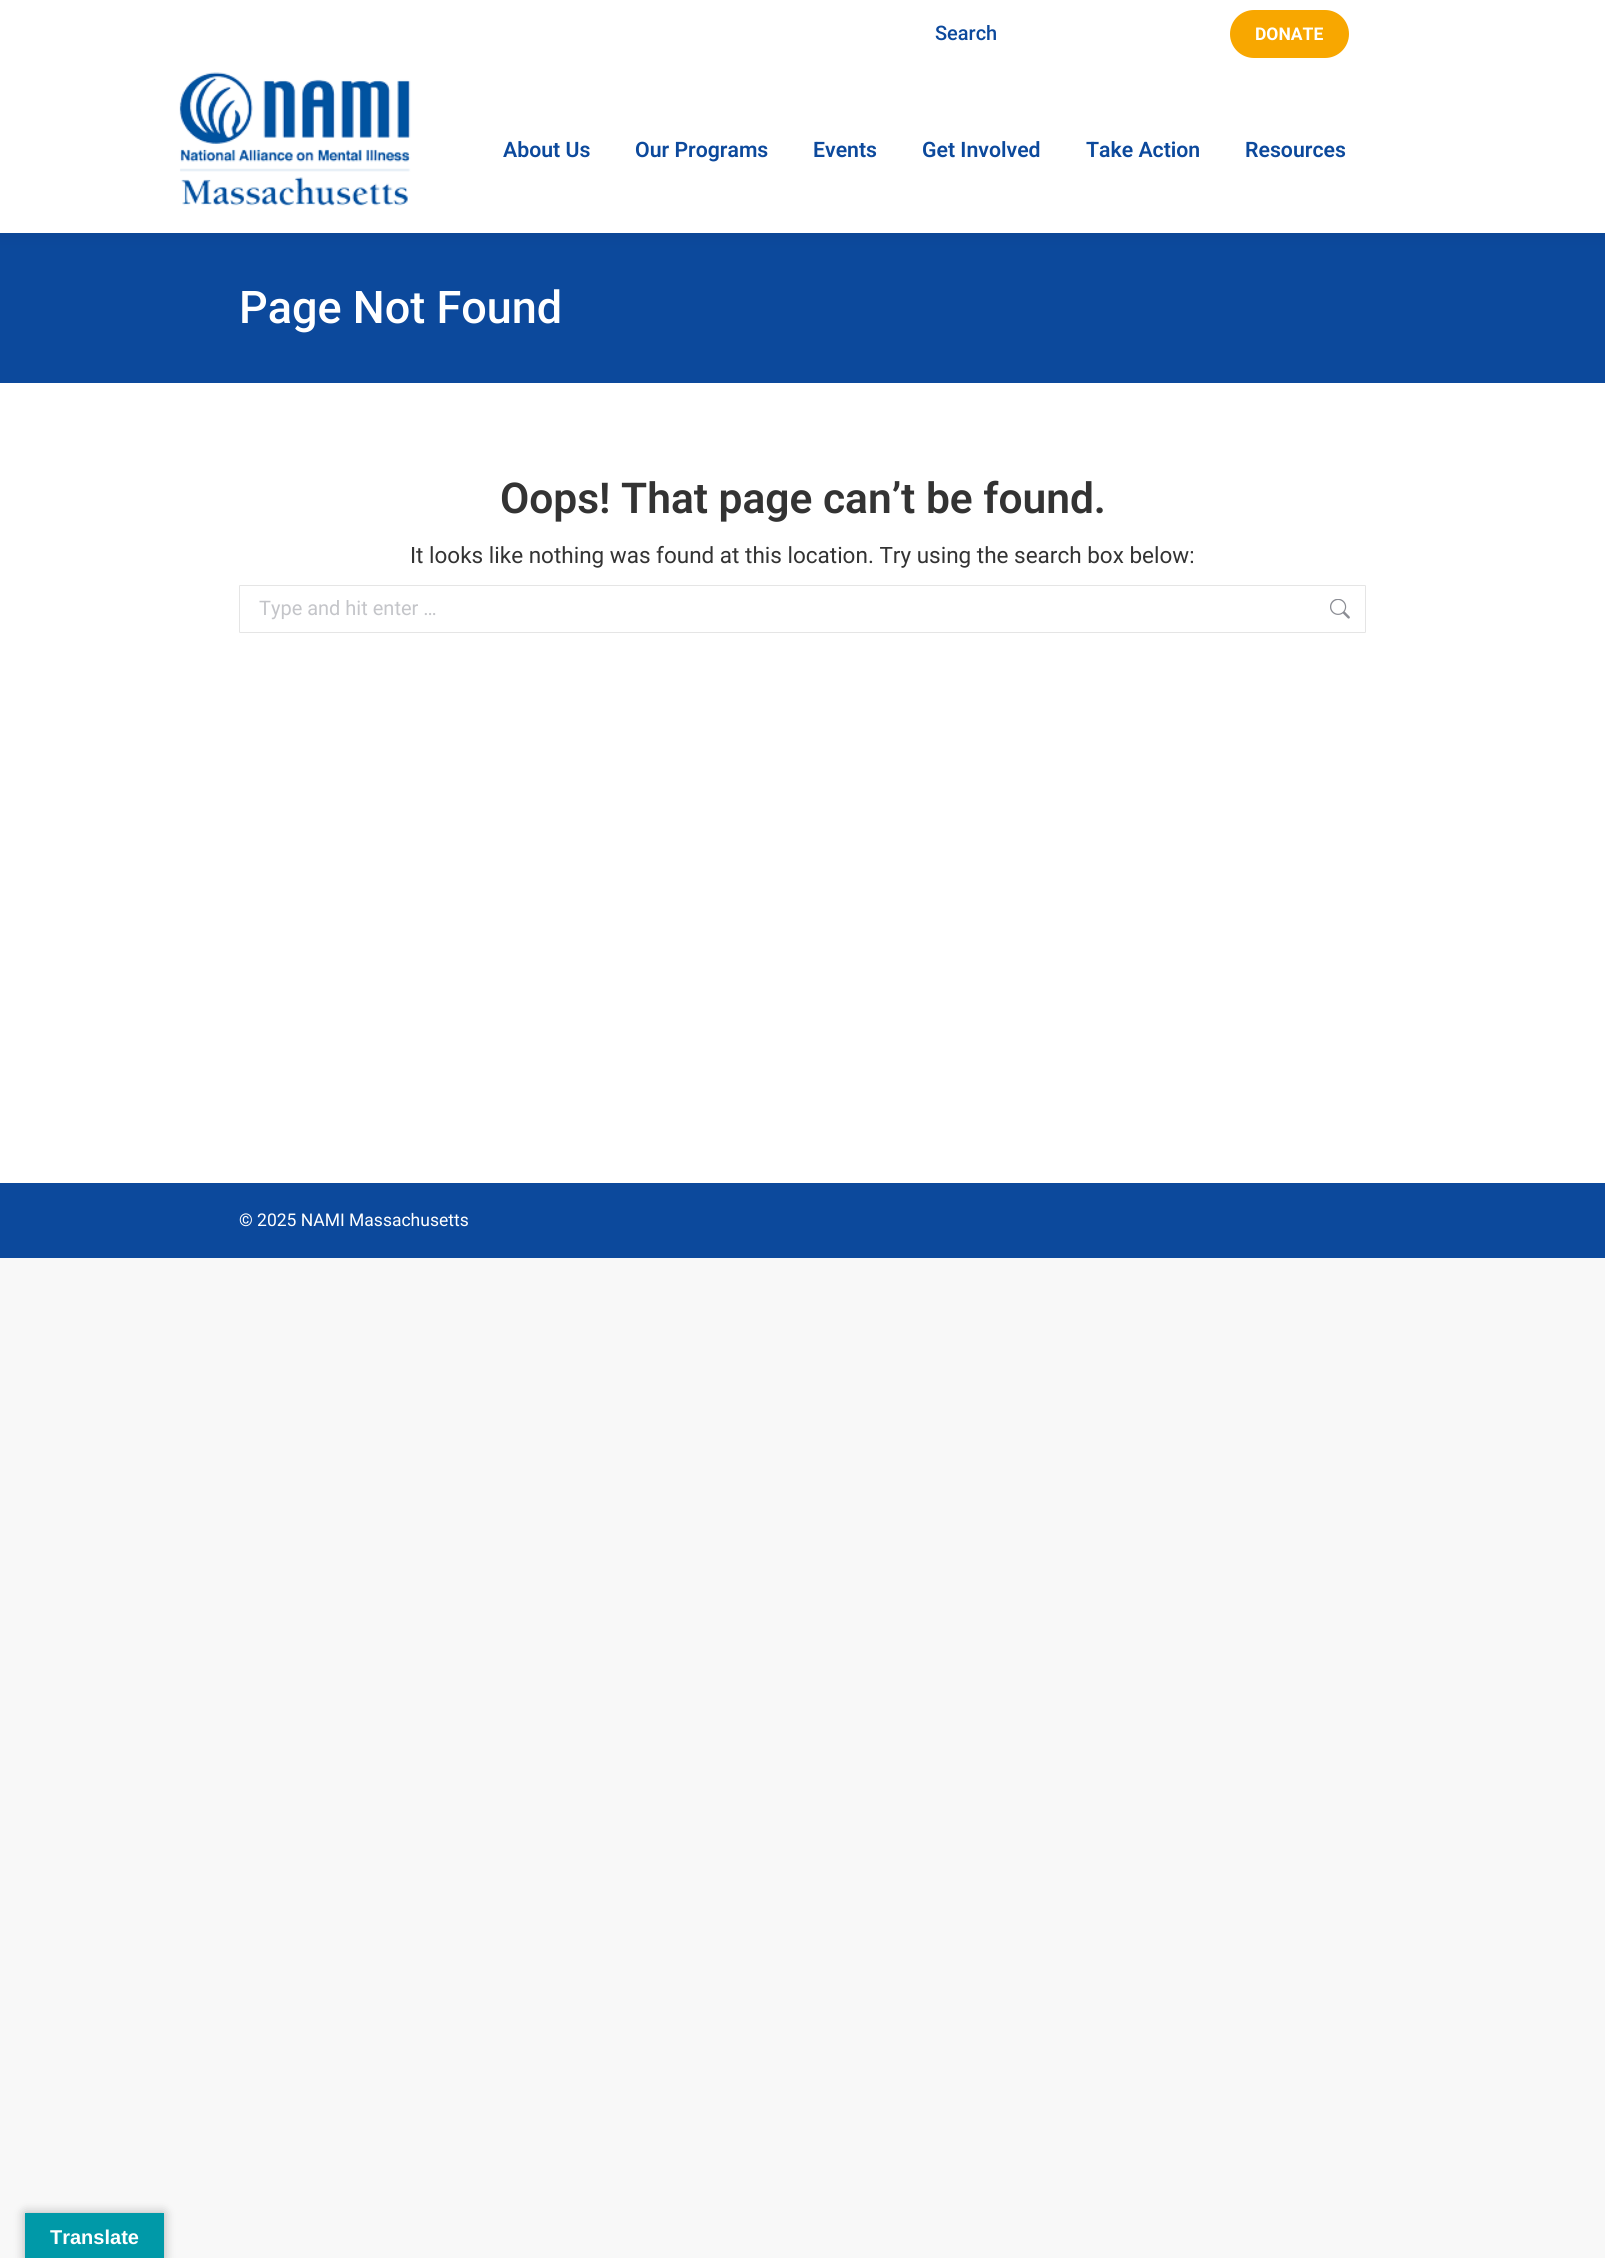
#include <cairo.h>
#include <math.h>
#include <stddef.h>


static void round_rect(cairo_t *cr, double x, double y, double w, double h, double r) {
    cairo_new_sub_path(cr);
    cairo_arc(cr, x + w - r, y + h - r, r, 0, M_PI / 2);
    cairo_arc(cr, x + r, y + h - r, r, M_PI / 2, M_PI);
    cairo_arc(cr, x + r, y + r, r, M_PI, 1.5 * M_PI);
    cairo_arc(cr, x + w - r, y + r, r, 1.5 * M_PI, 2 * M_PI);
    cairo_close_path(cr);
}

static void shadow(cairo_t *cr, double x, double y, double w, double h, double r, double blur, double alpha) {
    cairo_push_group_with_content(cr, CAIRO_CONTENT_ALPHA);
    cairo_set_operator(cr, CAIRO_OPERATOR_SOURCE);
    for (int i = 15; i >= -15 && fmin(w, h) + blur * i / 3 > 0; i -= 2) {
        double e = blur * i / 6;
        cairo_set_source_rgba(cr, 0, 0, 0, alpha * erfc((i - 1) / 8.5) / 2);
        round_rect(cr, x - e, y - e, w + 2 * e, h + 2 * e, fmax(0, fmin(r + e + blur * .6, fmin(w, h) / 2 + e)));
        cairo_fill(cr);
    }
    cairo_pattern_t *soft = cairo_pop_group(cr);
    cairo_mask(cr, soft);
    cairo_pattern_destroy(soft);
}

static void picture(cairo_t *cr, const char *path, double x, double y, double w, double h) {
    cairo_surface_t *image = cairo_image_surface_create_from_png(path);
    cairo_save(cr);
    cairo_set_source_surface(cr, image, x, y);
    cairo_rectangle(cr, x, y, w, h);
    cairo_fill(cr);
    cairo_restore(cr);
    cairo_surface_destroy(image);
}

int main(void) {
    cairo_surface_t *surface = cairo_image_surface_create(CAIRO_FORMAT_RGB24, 1605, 2258);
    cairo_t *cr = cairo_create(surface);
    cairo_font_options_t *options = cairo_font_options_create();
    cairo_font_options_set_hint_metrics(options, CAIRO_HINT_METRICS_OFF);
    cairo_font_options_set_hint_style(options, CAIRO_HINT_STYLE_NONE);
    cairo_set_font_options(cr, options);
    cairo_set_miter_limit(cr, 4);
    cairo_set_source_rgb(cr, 0.969, 0.969, 0.969);
    cairo_paint(cr);
    cairo_set_source_rgb(cr, 1, 1, 1);
    cairo_rectangle(cr, 0, 383, 1605, 800);
    cairo_fill(cr);
    cairo_set_source_rgb(cr, 0.047, 0.286, 0.612);
    cairo_rectangle(cr, 0, 233, 1605, 150);
    cairo_fill(cr);
    cairo_set_source_rgb(cr, 0, 0, 0);
    shadow(cr, -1, -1, 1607, 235, 0, 9.5, 0.07);
    cairo_set_source_rgb(cr, 1, 1, 1);
    cairo_rectangle(cr, 0, 0, 1605, 233);
    cairo_fill(cr);
    cairo_select_font_face(cr, "Roboto Medium", CAIRO_FONT_SLANT_NORMAL, CAIRO_FONT_WEIGHT_NORMAL);
    cairo_set_font_size(cr, 20);
    cairo_set_source_rgb(cr, 0.047, 0.286, 0.612);
    cairo_move_to(cr, 935, 40);
    cairo_show_text(cr, "Search");
    cairo_set_source_rgb(cr, 0.969, 0.655, 0);
    round_rect(cr, 1231.5, 11.5, 116, 45, 22.5);
    cairo_fill_preserve(cr);
    cairo_set_line_width(cr, 3);
    cairo_stroke(cr);
    cairo_select_font_face(cr, "Roboto", CAIRO_FONT_SLANT_NORMAL, CAIRO_FONT_WEIGHT_BOLD);
    cairo_set_font_size(cr, 17.5);
    cairo_set_source_rgb(cr, 1, 1, 1);
    cairo_move_to(cr, 1255, 40);
    cairo_show_text(cr, "DONATE");
    picture(cr, "img1.png", 179, 72, 232, 134);
    cairo_select_font_face(cr, "Roboto SemiBold", CAIRO_FONT_SLANT_NORMAL, CAIRO_FONT_WEIGHT_NORMAL);
    cairo_set_font_size(cr, 21.25);
    cairo_set_source_rgb(cr, 0.047, 0.286, 0.612);
    cairo_move_to(cr, 503, 157);
    cairo_show_text(cr, "About Us");
    cairo_move_to(cr, 635, 157);
    cairo_show_text(cr, "Our Programs");
    cairo_move_to(cr, 813, 157);
    cairo_show_text(cr, "Events");
    cairo_move_to(cr, 922, 157);
    cairo_show_text(cr, "Get Involved");
    cairo_move_to(cr, 1086, 157);
    cairo_show_text(cr, "Take Action");
    cairo_move_to(cr, 1245, 157);
    cairo_show_text(cr, "Resources");
    cairo_select_font_face(cr, "Roboto Medium", CAIRO_FONT_SLANT_NORMAL, CAIRO_FONT_WEIGHT_NORMAL);
    cairo_set_font_size(cr, 45);
    cairo_set_source_rgb(cr, 1, 1, 1);
    cairo_move_to(cr, 239, 323);
    cairo_show_text(cr, "Page Not Found");
    cairo_select_font_face(cr, "Roboto SemiBold", CAIRO_FONT_SLANT_NORMAL, CAIRO_FONT_WEIGHT_NORMAL);
    cairo_set_font_size(cr, 42.5);
    cairo_set_source_rgb(cr, 0.2, 0.2, 0.2);
    cairo_move_to(cr, 500, 513);
    cairo_show_text(cr, "Oops! That page can’t be found.");
    cairo_select_font_face(cr, "Roboto", CAIRO_FONT_SLANT_NORMAL, CAIRO_FONT_WEIGHT_NORMAL);
    cairo_set_font_size(cr, 22.5);
    cairo_move_to(cr, 410, 563);
    cairo_show_text(cr, "It looks like nothing was found at this location. Try using the search box below:");
    round_rect(cr, 239.5, 585.5, 1126, 47, 0.5);
    cairo_set_source_rgb(cr, 0.898, 0.898, 0.898);
    cairo_set_line_width(cr, 1);
    cairo_stroke(cr);
    cairo_set_font_size(cr, 20);
    cairo_set_source_rgb(cr, 0.769, 0.773, 0.788);
    cairo_move_to(cr, 259, 615);
    cairo_show_text(cr, "Type and hit enter …");
    picture(cr, "img2.png", 1330, 599, 20, 20);
    cairo_set_source_rgb(cr, 0.047, 0.286, 0.612);
    cairo_rectangle(cr, 0, 1183, 1605, 75);
    cairo_fill(cr);
    cairo_set_font_size(cr, 17.5);
    cairo_set_source_rgb(cr, 1, 1, 1);
    cairo_move_to(cr, 239, 1226);
    cairo_show_text(cr, "© 2025 NAMI Massachusetts");
    cairo_set_source_rgb(cr, 0, 0, 0);
    shadow(cr, 25, 2213, 139, 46, 0, 5.5, 0.3);
    cairo_set_source_rgb(cr, 0, 0.6, 0.659);
    cairo_rectangle(cr, 25, 2213, 139, 45);
    cairo_fill(cr);
    cairo_select_font_face(cr, "Liberation Sans", CAIRO_FONT_SLANT_NORMAL, CAIRO_FONT_WEIGHT_BOLD);
    cairo_set_font_size(cr, 20);
    cairo_set_source_rgb(cr, 1, 1, 1);
    cairo_move_to(cr, 50, 2244);
    cairo_show_text(cr, "Translate");
    cairo_surface_write_to_png(surface, "page.png");
    cairo_font_options_destroy(options);
    cairo_destroy(cr);
    cairo_surface_destroy(surface);
    return 0;
}
